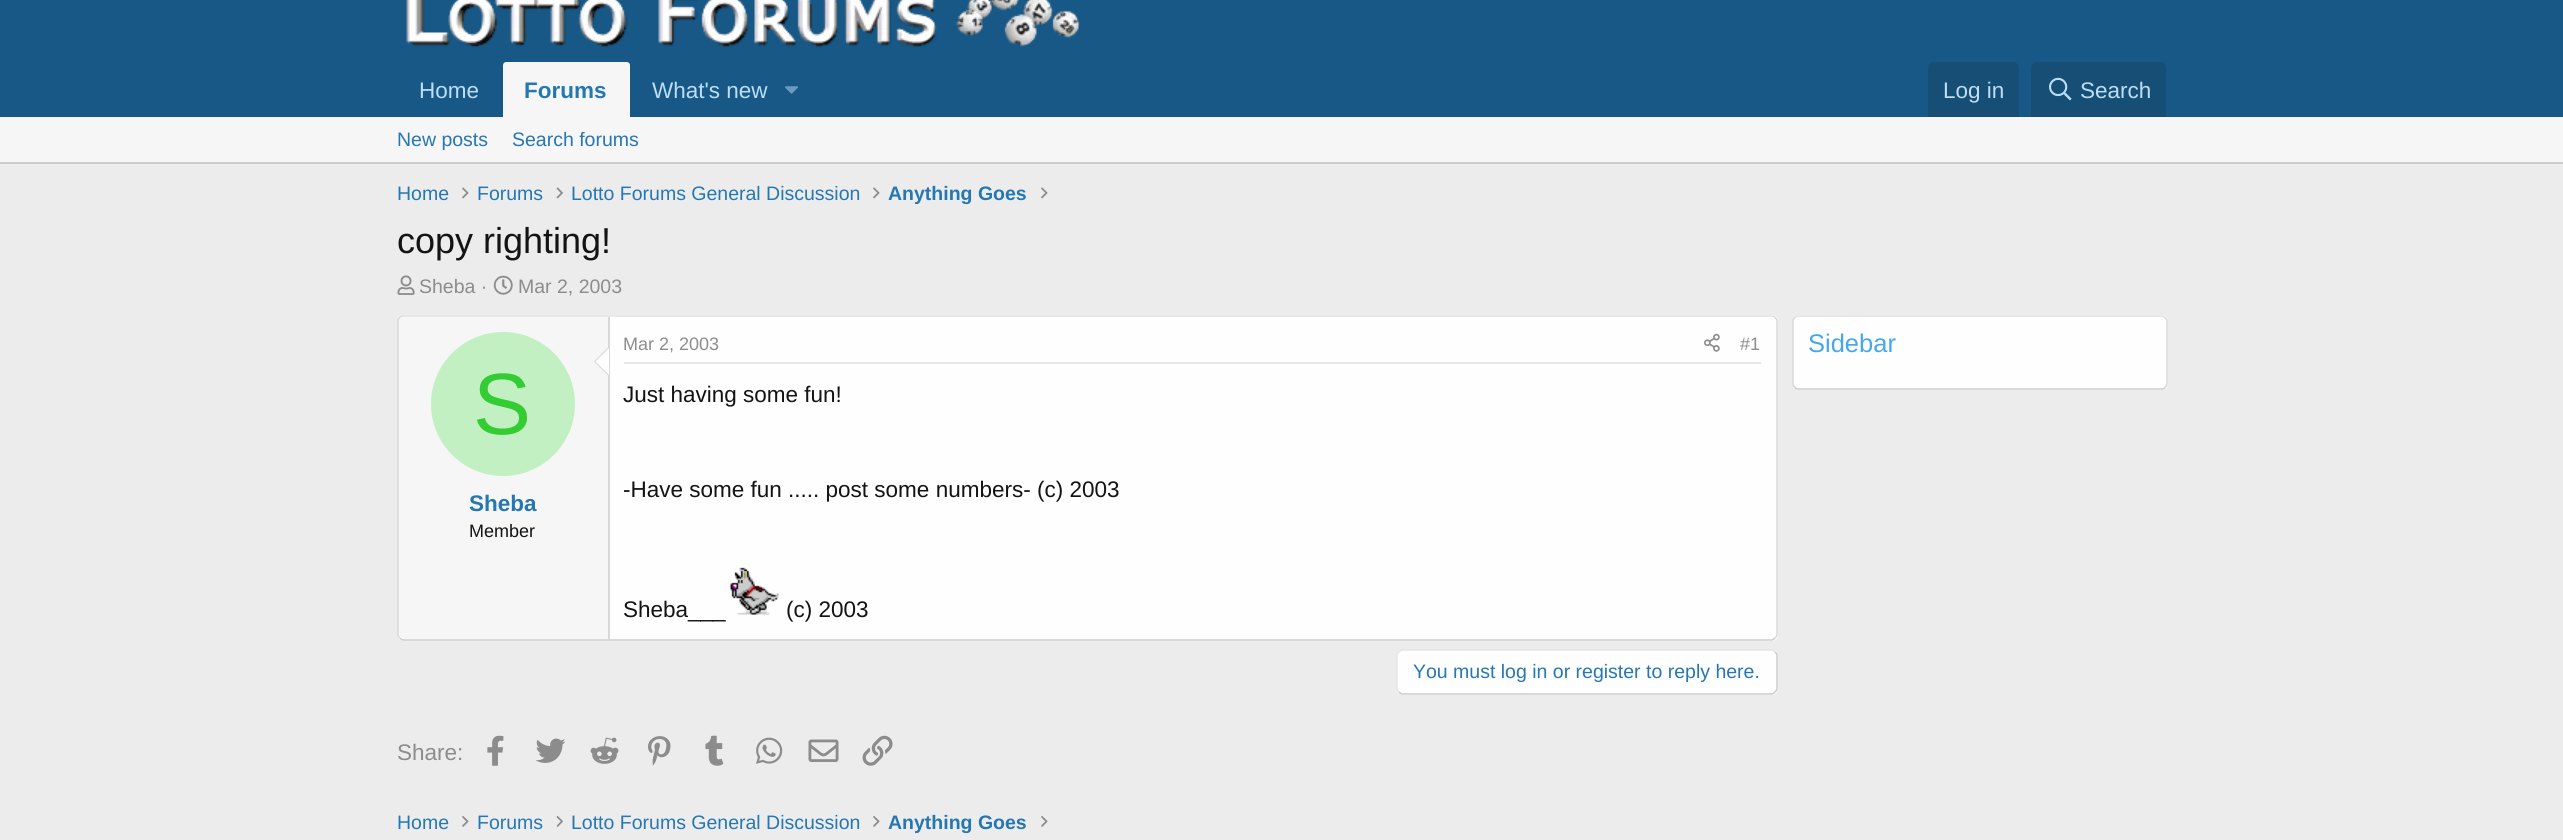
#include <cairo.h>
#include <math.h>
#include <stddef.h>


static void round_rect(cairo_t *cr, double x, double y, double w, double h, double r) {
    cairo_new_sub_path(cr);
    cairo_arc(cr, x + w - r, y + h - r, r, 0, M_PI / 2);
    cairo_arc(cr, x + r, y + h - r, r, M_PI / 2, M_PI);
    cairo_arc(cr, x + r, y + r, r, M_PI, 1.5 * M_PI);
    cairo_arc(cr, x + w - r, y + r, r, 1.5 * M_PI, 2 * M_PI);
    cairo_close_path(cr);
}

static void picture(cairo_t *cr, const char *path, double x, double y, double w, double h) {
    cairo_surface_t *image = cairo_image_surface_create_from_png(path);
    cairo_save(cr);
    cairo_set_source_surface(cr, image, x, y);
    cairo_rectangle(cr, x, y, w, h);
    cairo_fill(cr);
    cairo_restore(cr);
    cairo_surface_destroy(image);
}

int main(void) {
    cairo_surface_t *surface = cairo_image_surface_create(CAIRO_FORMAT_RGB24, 2563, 840);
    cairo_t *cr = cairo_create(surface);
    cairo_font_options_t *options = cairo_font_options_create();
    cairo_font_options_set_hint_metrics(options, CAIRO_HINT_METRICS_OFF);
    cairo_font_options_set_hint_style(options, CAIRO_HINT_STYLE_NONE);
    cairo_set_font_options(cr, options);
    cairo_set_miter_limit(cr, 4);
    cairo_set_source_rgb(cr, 0.925, 0.925, 0.925);
    cairo_paint(cr);
    cairo_set_source_rgb(cr, 0.094, 0.345, 0.525);
    cairo_rectangle(cr, 0, 0, 2563, 117);
    cairo_fill(cr);
    picture(cr, "img1.png", 406, 0, 675, 48);
    cairo_select_font_face(cr, "Liberation Sans", CAIRO_FONT_SLANT_NORMAL, CAIRO_FONT_WEIGHT_NORMAL);
    cairo_set_font_size(cr, 22.5);
    cairo_set_source_rgb(cr, 0.737, 0.871, 0.961);
    cairo_move_to(cr, 419, 98);
    cairo_show_text(cr, "Home");
    cairo_set_source_rgb(cr, 0.961, 0.961, 0.961);
    cairo_new_path(cr);
    cairo_move_to(cr, 506, 62);
    cairo_line_to(cr, 627, 62);
    cairo_curve_to(cr, 628.5, 62, 630, 63.5, 630, 65);
    cairo_line_to(cr, 630, 117);
    cairo_line_to(cr, 503, 117);
    cairo_line_to(cr, 503, 65);
    cairo_curve_to(cr, 503, 63.5, 504.5, 62, 506, 62);
    cairo_close_path(cr);
    cairo_fill(cr);
    cairo_select_font_face(cr, "Liberation Sans", CAIRO_FONT_SLANT_NORMAL, CAIRO_FONT_WEIGHT_BOLD);
    cairo_set_source_rgb(cr, 0.145, 0.467, 0.694);
    cairo_move_to(cr, 524, 98);
    cairo_show_text(cr, "Forums");
    cairo_select_font_face(cr, "Liberation Sans", CAIRO_FONT_SLANT_NORMAL, CAIRO_FONT_WEIGHT_NORMAL);
    cairo_set_source_rgb(cr, 0.737, 0.871, 0.961);
    cairo_move_to(cr, 652, 98);
    cairo_show_text(cr, "What's new");
    picture(cr, "img2.png", 785, 86, 13, 8);
    cairo_set_source_rgb(cr, 0.09, 0.306, 0.459);
    cairo_new_path(cr);
    cairo_move_to(cr, 1934, 62);
    cairo_line_to(cr, 2013, 62);
    cairo_curve_to(cr, 2016.5, 62, 2019, 64.5, 2019, 68);
    cairo_line_to(cr, 2019, 117);
    cairo_line_to(cr, 1928, 117);
    cairo_line_to(cr, 1928, 68);
    cairo_curve_to(cr, 1928, 64.5, 1930.5, 62, 1934, 62);
    cairo_close_path(cr);
    cairo_fill(cr);
    cairo_set_source_rgb(cr, 0.737, 0.871, 0.961);
    cairo_move_to(cr, 1943, 98);
    cairo_show_text(cr, "Log in");
    cairo_set_source_rgb(cr, 0.09, 0.306, 0.459);
    cairo_new_path(cr);
    cairo_move_to(cr, 2037, 62);
    cairo_line_to(cr, 2160, 62);
    cairo_curve_to(cr, 2163.5, 62, 2166, 64.5, 2166, 68);
    cairo_line_to(cr, 2166, 117);
    cairo_line_to(cr, 2031, 117);
    cairo_line_to(cr, 2031, 68);
    cairo_curve_to(cr, 2031, 64.5, 2033.5, 62, 2037, 62);
    cairo_close_path(cr);
    cairo_fill(cr);
    picture(cr, "img3.png", 2049, 77, 23, 24);
    cairo_set_source_rgb(cr, 0.737, 0.871, 0.961);
    cairo_move_to(cr, 2080, 98);
    cairo_show_text(cr, "Search");
    cairo_set_source_rgb(cr, 0.961, 0.961, 0.961);
    cairo_rectangle(cr, 0, 117, 2563, 45);
    cairo_fill(cr);
    cairo_set_source_rgb(cr, 0.796, 0.796, 0.796);
    cairo_rectangle(cr, 0, 162, 2563, 2);
    cairo_fill(cr);
    cairo_set_font_size(cr, 19.5);
    cairo_set_source_rgb(cr, 0.145, 0.467, 0.694);
    cairo_move_to(cr, 397, 146);
    cairo_show_text(cr, "New posts");
    cairo_move_to(cr, 512, 146);
    cairo_show_text(cr, "Search forums");
    cairo_move_to(cr, 397, 200);
    cairo_show_text(cr, "Home");
    picture(cr, "img4.png", 462, 187, 7, 12);
    cairo_move_to(cr, 477, 200);
    cairo_show_text(cr, "Forums");
    picture(cr, "img5.png", 556, 187, 7, 12);
    cairo_move_to(cr, 571, 200);
    cairo_show_text(cr, "Lotto Forums General Discussion");
    picture(cr, "img4.png", 873, 187, 7, 12);
    cairo_select_font_face(cr, "Liberation Sans", CAIRO_FONT_SLANT_NORMAL, CAIRO_FONT_WEIGHT_BOLD);
    cairo_move_to(cr, 888, 200);
    cairo_show_text(cr, "Anything Goes");
    picture(cr, "img4.png", 1041, 187, 7, 12);
    cairo_select_font_face(cr, "Liberation Sans", CAIRO_FONT_SLANT_NORMAL, CAIRO_FONT_WEIGHT_NORMAL);
    cairo_set_font_size(cr, 36);
    cairo_set_source_rgb(cr, 0.078, 0.078, 0.078);
    cairo_move_to(cr, 397, 253);
    cairo_show_text(cr, "copy righting!");
    picture(cr, "img6.png", 397, 275, 18, 20);
    cairo_set_font_size(cr, 19.5);
    cairo_set_source_rgb(cr, 0.549, 0.549, 0.549);
    cairo_move_to(cr, 419, 293);
    cairo_show_text(cr, "Sheba ·");
    picture(cr, "img7.png", 493, 275, 20, 20);
    cairo_move_to(cr, 518, 293);
    cairo_show_text(cr, "Mar 2, 2003");
    cairo_set_source_rgb(cr, 0.996, 0.996, 0.996);
    round_rect(cr, 398, 315, 1380, 326, 6);
    cairo_fill(cr);
    cairo_new_path(cr);
    cairo_move_to(cr, 400, 317.5);
    cairo_curve_to(cr, 401, 316.5, 402, 316, 403.5, 316);
    cairo_line_to(cr, 1771.5, 316);
    cairo_curve_to(cr, 1773, 316, 1774, 316.5, 1775, 317.5);
    cairo_set_source_rgb(cr, 0.875, 0.875, 0.875);
    cairo_set_line_width(cr, 1.5);
    cairo_stroke(cr);
    cairo_new_path(cr);
    cairo_move_to(cr, 1775, 317.5);
    cairo_curve_to(cr, 1776, 318.5, 1777, 319.5, 1777, 321);
    cairo_line_to(cr, 1777, 634.5);
    cairo_curve_to(cr, 1777, 636, 1776, 637, 1775, 638);
    cairo_set_source_rgb(cr, 0.847, 0.847, 0.847);
    cairo_stroke(cr);
    cairo_new_path(cr);
    cairo_move_to(cr, 1775, 638);
    cairo_curve_to(cr, 1774, 639, 1773, 640, 1771.5, 640);
    cairo_line_to(cr, 403.5, 640);
    cairo_curve_to(cr, 402, 640, 401, 639, 400, 638);
    cairo_set_source_rgb(cr, 0.796, 0.796, 0.796);
    cairo_stroke(cr);
    cairo_new_path(cr);
    cairo_move_to(cr, 400, 638);
    cairo_curve_to(cr, 399, 637, 398, 636, 398, 634.5);
    cairo_line_to(cr, 398, 321);
    cairo_curve_to(cr, 398, 319.5, 399, 318.5, 400, 317.5);
    cairo_set_source_rgb(cr, 0.847, 0.847, 0.847);
    cairo_stroke(cr);
    cairo_set_source_rgb(cr, 0.961, 0.961, 0.961);
    cairo_new_path(cr);
    cairo_move_to(cr, 404, 317);
    cairo_line_to(cr, 609, 317);
    cairo_line_to(cr, 609, 639);
    cairo_line_to(cr, 404, 639);
    cairo_curve_to(cr, 401, 639, 399, 637, 399, 634);
    cairo_line_to(cr, 399, 322);
    cairo_curve_to(cr, 399, 319, 401, 317, 404, 317);
    cairo_close_path(cr);
    cairo_fill(cr);
    cairo_set_source_rgb(cr, 0.847, 0.847, 0.847);
    cairo_rectangle(cr, 608, 317, 2, 322);
    cairo_fill(cr);
    cairo_new_path(cr);
    cairo_move_to(cr, 609, 346.5);
    cairo_line_to(cr, 609, 376.5);
    cairo_line_to(cr, 594, 361.5);
    cairo_close_path(cr);
    cairo_fill(cr);
    cairo_set_source_rgb(cr, 0.996, 0.996, 0.996);
    cairo_new_path(cr);
    cairo_move_to(cr, 609, 348);
    cairo_line_to(cr, 609, 375);
    cairo_line_to(cr, 595.5, 361.5);
    cairo_close_path(cr);
    cairo_fill(cr);
    cairo_set_source_rgb(cr, 0.761, 0.941, 0.761);
    cairo_arc(cr, 503, 404, 72, 0, 2 * M_PI);
    cairo_fill(cr);
    cairo_set_font_size(cr, 87);
    cairo_set_source_rgb(cr, 0.2, 0.8, 0.2);
    cairo_move_to(cr, 473, 434);
    cairo_show_text(cr, "S");
    cairo_select_font_face(cr, "Liberation Sans", CAIRO_FONT_SLANT_NORMAL, CAIRO_FONT_WEIGHT_BOLD);
    cairo_set_font_size(cr, 22.5);
    cairo_set_source_rgb(cr, 0.145, 0.467, 0.694);
    cairo_move_to(cr, 469, 511);
    cairo_show_text(cr, "Sheba");
    cairo_select_font_face(cr, "Liberation Sans", CAIRO_FONT_SLANT_NORMAL, CAIRO_FONT_WEIGHT_NORMAL);
    cairo_set_font_size(cr, 18);
    cairo_set_source_rgb(cr, 0.078, 0.078, 0.078);
    cairo_move_to(cr, 469, 537);
    cairo_show_text(cr, "Member");
    cairo_set_source_rgb(cr, 0.906, 0.906, 0.906);
    cairo_rectangle(cr, 624, 362, 1137, 2);
    cairo_fill(cr);
    cairo_set_source_rgb(cr, 0.549, 0.549, 0.549);
    cairo_move_to(cr, 623, 350);
    cairo_show_text(cr, "Mar 2, 2003");
    picture(cr, "img8.png", 1704, 333, 16, 19);
    cairo_move_to(cr, 1740, 350);
    cairo_show_text(cr, "#1");
    cairo_set_font_size(cr, 22.5);
    cairo_set_source_rgb(cr, 0.078, 0.078, 0.078);
    cairo_move_to(cr, 623, 402);
    cairo_show_text(cr, "Just having some fun!");
    cairo_move_to(cr, 623, 497);
    cairo_show_text(cr, "-Have some fun ..... post some numbers- (c) 2003");
    cairo_move_to(cr, 623, 617);
    cairo_show_text(cr, "Sheba___");
    picture(cr, "img9.png", 730, 567, 49, 48);
    cairo_move_to(cr, 786, 617);
    cairo_show_text(cr, "(c) 2003");
    cairo_set_source_rgb(cr, 0.996, 0.996, 0.996);
    round_rect(cr, 1397, 650, 381, 45, 6);
    cairo_fill(cr);
    cairo_new_path(cr);
    cairo_move_to(cr, 1775, 652);
    cairo_curve_to(cr, 1776, 653, 1777, 654, 1777, 655.5);
    cairo_line_to(cr, 1777, 688.5);
    cairo_curve_to(cr, 1777, 690, 1776, 691, 1775, 692);
    cairo_curve_to(cr, 1774, 693, 1773, 694, 1771.5, 694);
    cairo_line_to(cr, 1402.5, 694);
    cairo_curve_to(cr, 1401, 694, 1400, 693, 1399, 692);
    cairo_set_source_rgb(cr, 0.796, 0.796, 0.796);
    cairo_stroke(cr);
    cairo_new_path(cr);
    cairo_move_to(cr, 1399, 692);
    cairo_curve_to(cr, 1398, 691, 1397, 690, 1397, 688.5);
    cairo_line_to(cr, 1397, 655.5);
    cairo_curve_to(cr, 1397, 654, 1398, 653, 1399, 652);
    cairo_curve_to(cr, 1400, 651, 1401, 650, 1402.5, 650);
    cairo_line_to(cr, 1771.5, 650);
    cairo_curve_to(cr, 1773, 650, 1774, 651, 1775, 652);
    cairo_set_source_rgb(cr, 0.898, 0.898, 0.898);
    cairo_stroke(cr);
    cairo_set_font_size(cr, 19.5);
    cairo_set_source_rgb(cr, 0.145, 0.467, 0.694);
    cairo_move_to(cr, 1413, 678);
    cairo_show_text(cr, "You must log in or register to reply here.");
    cairo_set_font_size(cr, 22.5);
    cairo_set_source_rgb(cr, 0.549, 0.549, 0.549);
    cairo_move_to(cr, 397, 760);
    cairo_show_text(cr, "Share:");
    picture(cr, "img10.png", 487, 735, 17, 31);
    picture(cr, "img11.png", 535, 738, 31, 25);
    picture(cr, "img12.png", 590, 737, 29, 27);
    picture(cr, "img13.png", 648, 736, 23, 30);
    picture(cr, "img14.png", 705, 735, 19, 31);
    picture(cr, "img15.png", 756, 737, 27, 27);
    picture(cr, "img16.png", 808, 739, 31, 23);
    picture(cr, "img17.png", 862, 735, 31, 31);
    cairo_set_source_rgb(cr, 0.996, 0.996, 0.996);
    round_rect(cr, 1793, 315, 375, 75, 6);
    cairo_fill(cr);
    cairo_new_path(cr);
    cairo_move_to(cr, 1795, 317.5);
    cairo_curve_to(cr, 1796, 316.5, 1797, 316, 1798.5, 316);
    cairo_line_to(cr, 2161.5, 316);
    cairo_curve_to(cr, 2163, 316, 2164, 316.5, 2165, 317.5);
    cairo_set_source_rgb(cr, 0.875, 0.875, 0.875);
    cairo_stroke(cr);
    cairo_new_path(cr);
    cairo_move_to(cr, 2165, 317.5);
    cairo_curve_to(cr, 2166, 318.5, 2167, 319.5, 2167, 321);
    cairo_line_to(cr, 2167, 384);
    cairo_curve_to(cr, 2167, 385.5, 2166, 386.5, 2165, 387.5);
    cairo_set_source_rgb(cr, 0.847, 0.847, 0.847);
    cairo_stroke(cr);
    cairo_new_path(cr);
    cairo_move_to(cr, 2165, 387.5);
    cairo_curve_to(cr, 2164, 388.5, 2163, 389, 2161.5, 389);
    cairo_line_to(cr, 1798.5, 389);
    cairo_curve_to(cr, 1797, 389, 1796, 388.5, 1795, 387.5);
    cairo_set_source_rgb(cr, 0.796, 0.796, 0.796);
    cairo_stroke(cr);
    cairo_new_path(cr);
    cairo_move_to(cr, 1795, 387.5);
    cairo_curve_to(cr, 1794, 386.5, 1793, 385.5, 1793, 384);
    cairo_line_to(cr, 1793, 321);
    cairo_curve_to(cr, 1793, 319.5, 1794, 318.5, 1795, 317.5);
    cairo_set_source_rgb(cr, 0.847, 0.847, 0.847);
    cairo_stroke(cr);
    cairo_set_font_size(cr, 25.5);
    cairo_set_source_rgb(cr, 0.278, 0.655, 0.922);
    cairo_move_to(cr, 1808, 352);
    cairo_show_text(cr, "Sidebar");
    cairo_set_font_size(cr, 19.5);
    cairo_set_source_rgb(cr, 0.145, 0.467, 0.694);
    cairo_move_to(cr, 397, 829);
    cairo_show_text(cr, "Home");
    picture(cr, "img18.png", 462, 816, 7, 11);
    cairo_move_to(cr, 477, 829);
    cairo_show_text(cr, "Forums");
    picture(cr, "img19.png", 556, 816, 7, 11);
    cairo_move_to(cr, 571, 829);
    cairo_show_text(cr, "Lotto Forums General Discussion");
    picture(cr, "img18.png", 873, 816, 7, 11);
    cairo_select_font_face(cr, "Liberation Sans", CAIRO_FONT_SLANT_NORMAL, CAIRO_FONT_WEIGHT_BOLD);
    cairo_move_to(cr, 888, 829);
    cairo_show_text(cr, "Anything Goes");
    picture(cr, "img18.png", 1041, 816, 7, 11);
    cairo_surface_write_to_png(surface, "page.png");
    cairo_font_options_destroy(options);
    cairo_destroy(cr);
    cairo_surface_destroy(surface);
    return 0;
}
